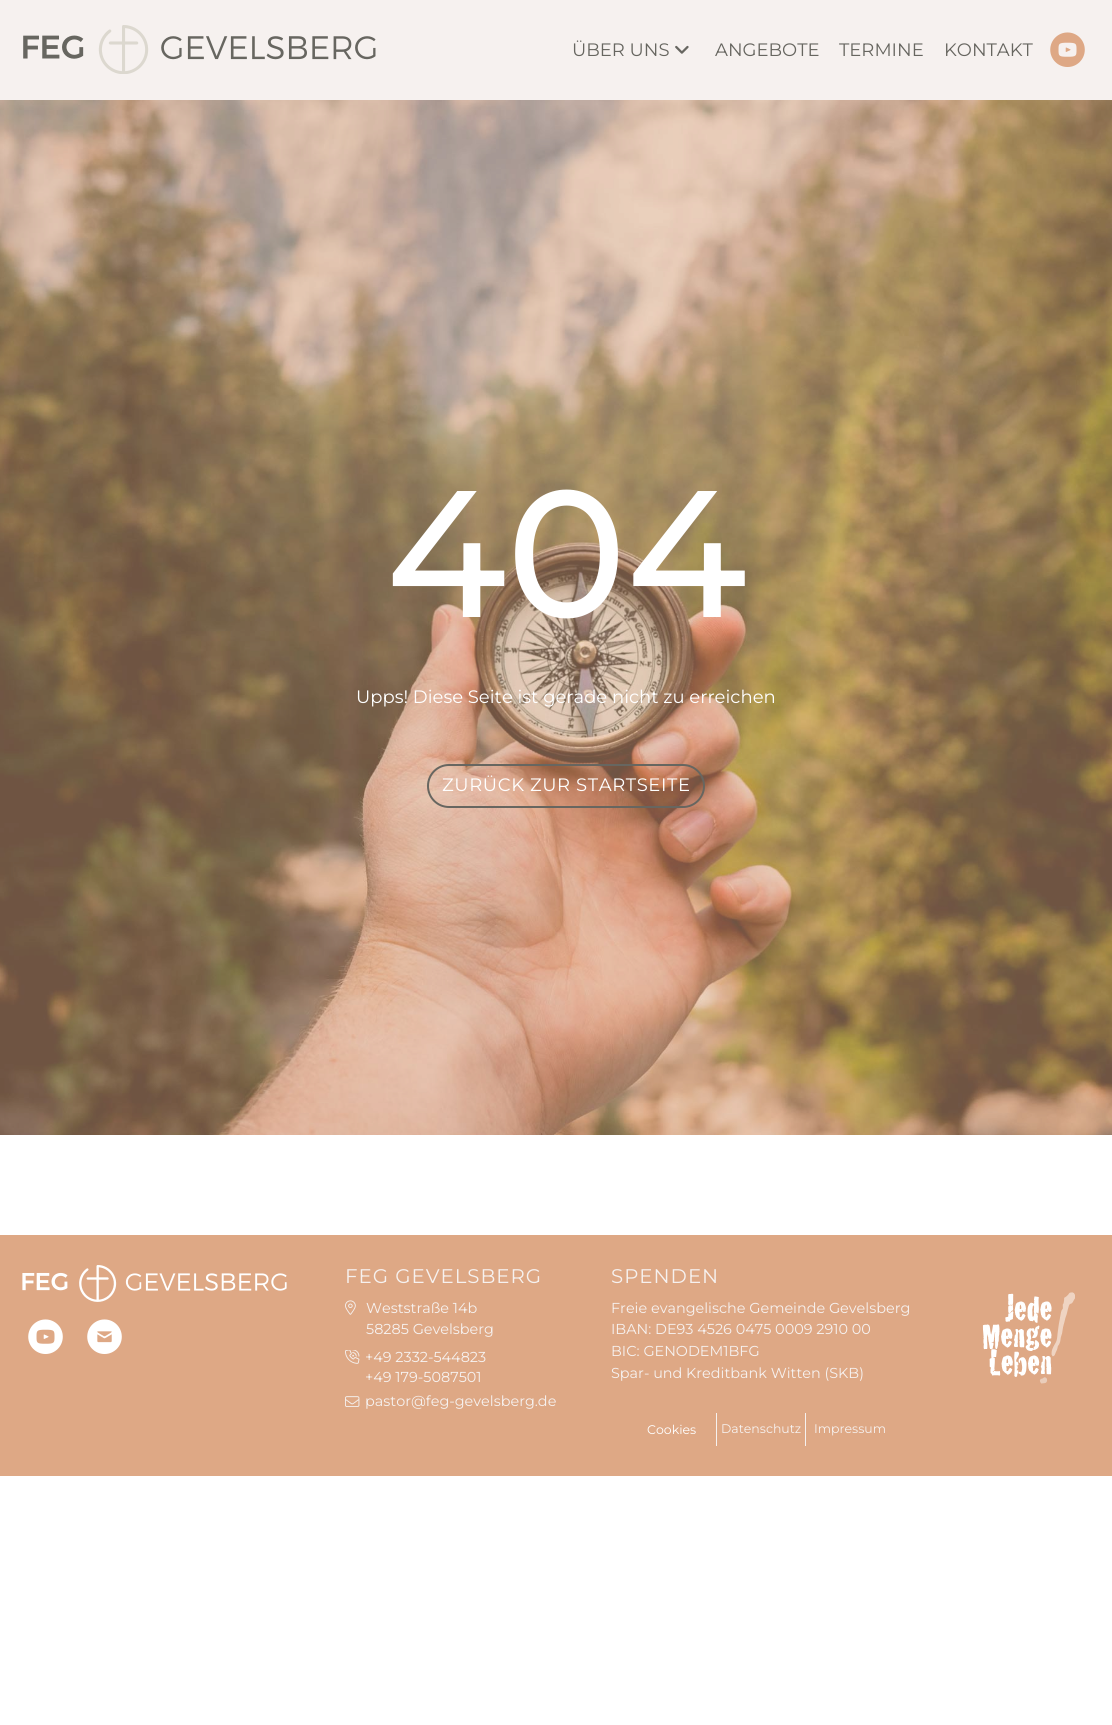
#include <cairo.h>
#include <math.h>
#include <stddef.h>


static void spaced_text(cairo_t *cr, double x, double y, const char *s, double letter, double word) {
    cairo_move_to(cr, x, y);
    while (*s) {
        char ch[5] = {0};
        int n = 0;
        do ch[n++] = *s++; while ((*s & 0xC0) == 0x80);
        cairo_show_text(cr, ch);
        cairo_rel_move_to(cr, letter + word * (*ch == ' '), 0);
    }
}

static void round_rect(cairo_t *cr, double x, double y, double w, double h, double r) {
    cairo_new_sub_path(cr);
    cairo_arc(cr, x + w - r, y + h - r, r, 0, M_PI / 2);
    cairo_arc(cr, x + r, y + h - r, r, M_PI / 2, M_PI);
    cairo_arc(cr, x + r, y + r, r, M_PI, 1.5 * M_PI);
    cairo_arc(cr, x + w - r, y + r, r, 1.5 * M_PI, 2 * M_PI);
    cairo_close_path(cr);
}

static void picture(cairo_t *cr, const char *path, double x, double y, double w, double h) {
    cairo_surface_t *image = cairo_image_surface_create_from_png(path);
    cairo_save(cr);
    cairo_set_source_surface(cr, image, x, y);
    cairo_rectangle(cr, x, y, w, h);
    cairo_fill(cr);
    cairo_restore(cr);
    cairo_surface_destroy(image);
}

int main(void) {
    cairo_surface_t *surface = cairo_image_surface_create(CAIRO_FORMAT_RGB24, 1112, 1725);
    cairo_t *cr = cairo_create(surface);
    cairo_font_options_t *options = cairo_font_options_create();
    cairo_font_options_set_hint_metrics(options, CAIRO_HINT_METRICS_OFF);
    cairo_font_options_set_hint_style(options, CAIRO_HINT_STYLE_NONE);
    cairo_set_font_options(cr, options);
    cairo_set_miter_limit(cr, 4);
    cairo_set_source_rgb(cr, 1, 1, 1);
    cairo_paint(cr);
    cairo_set_source_rgb(cr, 0.961, 0.945, 0.937);
    cairo_rectangle(cr, 0, 0, 1112, 100);
    cairo_fill(cr);
    picture(cr, "img1.png", 23, 25, 353, 49);
    cairo_select_font_face(cr, "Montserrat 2 Thin", CAIRO_FONT_SLANT_NORMAL, CAIRO_FONT_WEIGHT_NORMAL);
    cairo_set_font_size(cr, 18);
    cairo_set_source_rgb(cr, 0.404, 0.4, 0.376);
    cairo_move_to(cr, 572, 56);
    cairo_show_text(cr, "ÜBER UNS");
    picture(cr, "img2.png", 675, 45, 14, 9);
    cairo_move_to(cr, 715, 56);
    cairo_show_text(cr, "ANGEBOTE");
    cairo_move_to(cr, 839, 56);
    cairo_show_text(cr, "TERMINE");
    cairo_move_to(cr, 944, 56);
    cairo_show_text(cr, "KONTAKT");
    picture(cr, "img3.png", 1050, 32, 35, 35);
    picture(cr, "img4.png", 0, 100, 1112, 1035);
    cairo_select_font_face(cr, "Montserrat Thin", CAIRO_FONT_SLANT_NORMAL, CAIRO_FONT_WEIGHT_NORMAL);
    cairo_set_font_size(cr, 180);
    cairo_set_source_rgb(cr, 1, 1, 1);
    cairo_move_to(cr, 386, 617);
    cairo_show_text(cr, "404");
    cairo_select_font_face(cr, "Montserrat 2 Thin", CAIRO_FONT_SLANT_NORMAL, CAIRO_FONT_WEIGHT_NORMAL);
    cairo_set_font_size(cr, 18);
    cairo_move_to(cr, 356, 703);
    cairo_show_text(cr, "Upps! Diese Seite ist gerade nicht zu erreichen");
    round_rect(cr, 428, 765, 276, 42, 21);
    cairo_set_source_rgb(cr, 0.404, 0.4, 0.376);
    cairo_stroke(cr);
    cairo_set_source_rgb(cr, 1, 1, 1);
    spaced_text(cr, 442, 791, "ZURÜCK ZUR STARTSEITE", 0.6, 0);
    cairo_set_source_rgb(cr, 0.871, 0.659, 0.522);
    cairo_rectangle(cr, 0, 1235, 1112, 241);
    cairo_fill(cr);
    picture(cr, "img5.png", 22, 1265, 265, 37);
    picture(cr, "img6.png", 28, 1319, 35, 35);
    picture(cr, "img7.png", 87, 1319, 35, 35);
    cairo_set_font_size(cr, 19.75);
    cairo_set_source_rgb(cr, 0.961, 0.945, 0.937);
    spaced_text(cr, 345, 1283, "FEG GEVELSBERG", 1, 0);
    picture(cr, "img8.png", 345, 1300, 11, 15);
    cairo_set_font_size(cr, 14.4);
    cairo_move_to(cr, 366, 1313);
    cairo_show_text(cr, "Weststraße 14b");
    cairo_move_to(cr, 366, 1334);
    cairo_show_text(cr, "58285 Gevelsberg");
    picture(cr, "img9.png", 345, 1350, 15, 14);
    cairo_move_to(cr, 365, 1362);
    cairo_show_text(cr, "+49 2332-544823");
    cairo_move_to(cr, 365, 1382);
    cairo_show_text(cr, "+49 179-5087501");
    picture(cr, "img10.png", 345, 1396, 15, 11);
    cairo_move_to(cr, 365, 1406);
    cairo_show_text(cr, "pastor@feg-gevelsberg.de");
    cairo_set_font_size(cr, 19.75);
    spaced_text(cr, 611, 1283, "SPENDEN", 1, 0);
    cairo_set_font_size(cr, 14.4);
    cairo_move_to(cr, 611, 1313);
    cairo_show_text(cr, "Freie evangelische Gemeinde Gevelsberg");
    cairo_move_to(cr, 611, 1334);
    cairo_show_text(cr, "IBAN: DE93 4526 0475 0009 2910 00");
    cairo_move_to(cr, 611, 1356);
    cairo_show_text(cr, "BIC: GENODEM1BFG");
    cairo_move_to(cr, 611, 1378);
    cairo_show_text(cr, "Spar- und Kreditbank Witten (SKB)");
    cairo_rectangle(cr, 716, 1413, 90, 33);
    cairo_fill(cr);
    cairo_set_font_size(cr, 12.5);
    cairo_set_source_rgb(cr, 1, 1, 1);
    cairo_move_to(cr, 647, 1434);
    cairo_show_text(cr, "Cookies");
    cairo_set_source_rgb(cr, 0.871, 0.659, 0.522);
    cairo_rectangle(cr, 717, 1413, 88, 33);
    cairo_fill(cr);
    cairo_set_source_rgb(cr, 0.961, 0.945, 0.937);
    cairo_move_to(cr, 721, 1433);
    cairo_show_text(cr, "Datenschutz");
    cairo_move_to(cr, 814, 1433);
    cairo_show_text(cr, "Impressum");
    picture(cr, "img11.png", 982, 1292, 93, 92);
    cairo_surface_write_to_png(surface, "page.png");
    cairo_font_options_destroy(options);
    cairo_destroy(cr);
    cairo_surface_destroy(surface);
    return 0;
}
